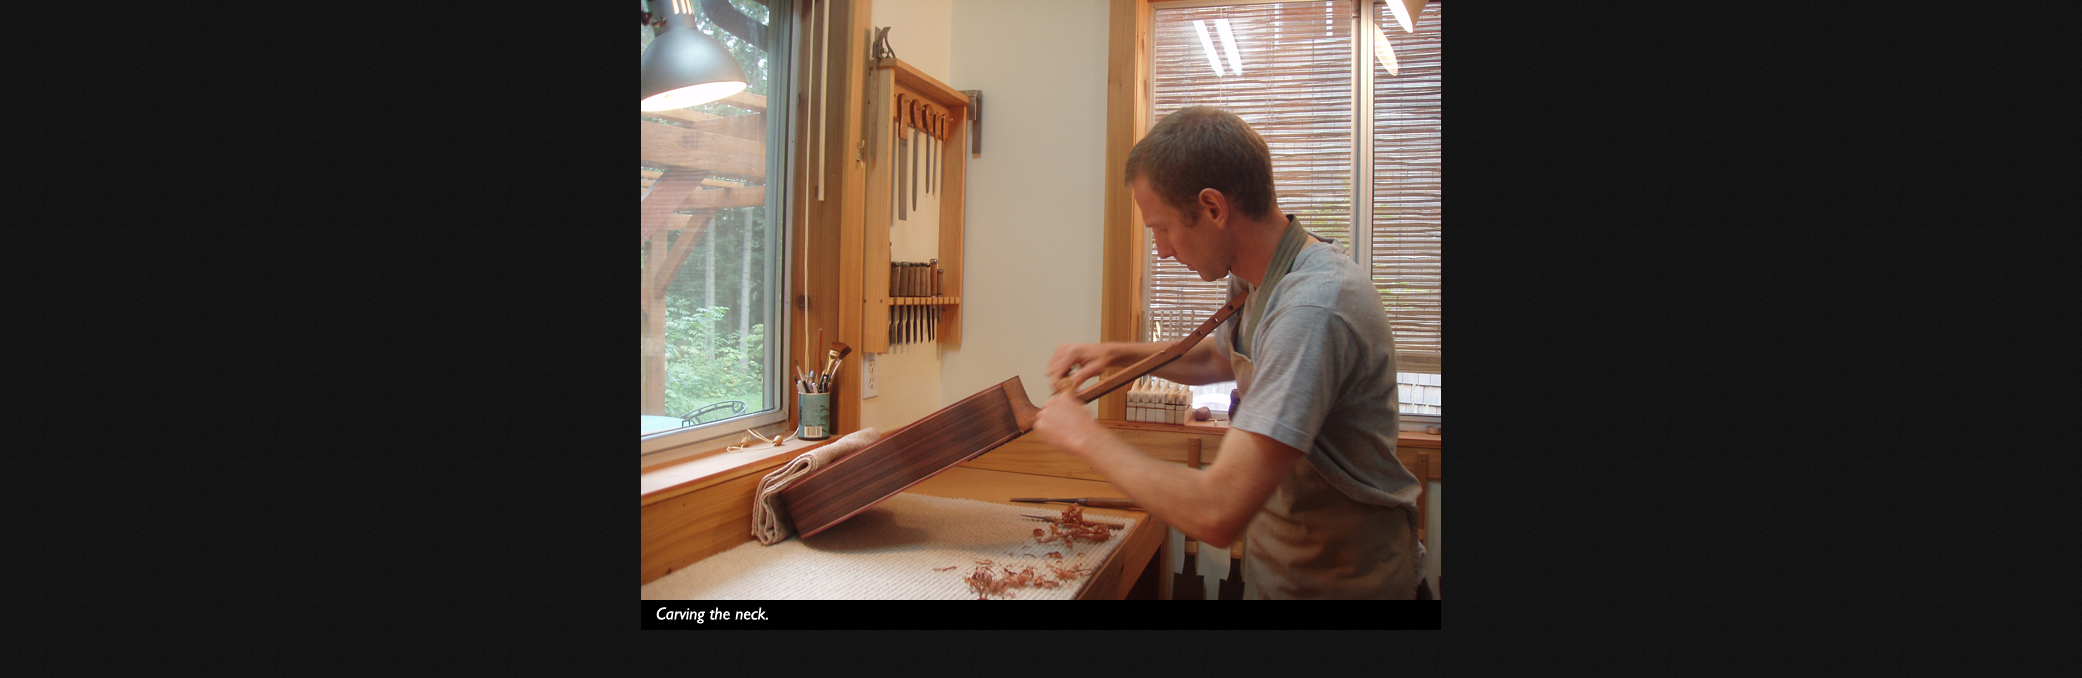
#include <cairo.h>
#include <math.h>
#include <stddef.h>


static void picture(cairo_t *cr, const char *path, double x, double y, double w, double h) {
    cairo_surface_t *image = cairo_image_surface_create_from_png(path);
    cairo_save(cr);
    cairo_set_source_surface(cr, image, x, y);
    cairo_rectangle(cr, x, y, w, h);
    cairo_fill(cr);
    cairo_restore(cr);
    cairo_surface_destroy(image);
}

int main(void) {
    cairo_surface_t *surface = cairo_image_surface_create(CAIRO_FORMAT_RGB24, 2082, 678);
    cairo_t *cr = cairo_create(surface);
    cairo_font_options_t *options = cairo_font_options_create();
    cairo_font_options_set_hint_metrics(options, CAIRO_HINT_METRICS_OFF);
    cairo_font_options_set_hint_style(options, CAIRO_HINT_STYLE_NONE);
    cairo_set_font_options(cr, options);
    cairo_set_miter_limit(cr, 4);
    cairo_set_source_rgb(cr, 1, 1, 1);
    cairo_paint(cr);
    picture(cr, "img1.png", 0, 0, 2082, 678);
    picture(cr, "img2.png", 641, 0, 800, 630);
    cairo_surface_write_to_png(surface, "page.png");
    cairo_font_options_destroy(options);
    cairo_destroy(cr);
    cairo_surface_destroy(surface);
    return 0;
}
